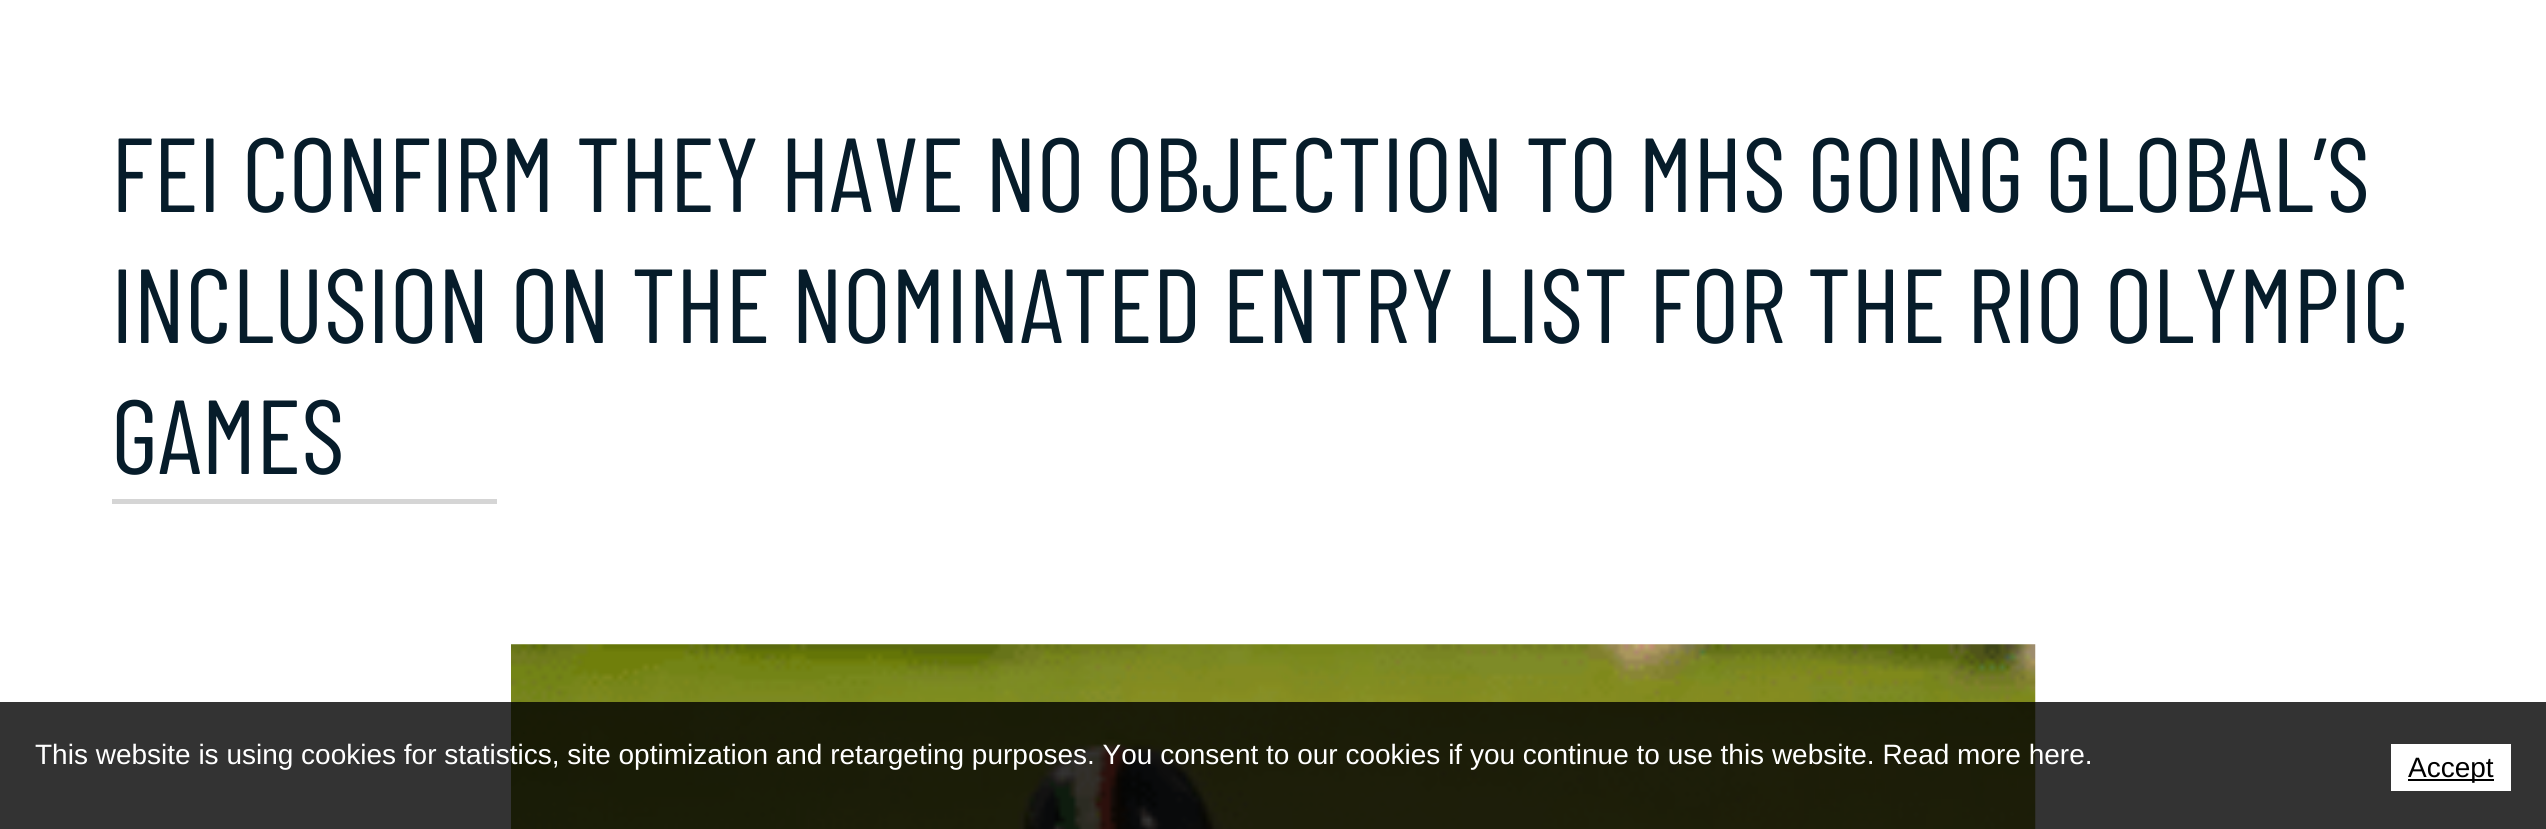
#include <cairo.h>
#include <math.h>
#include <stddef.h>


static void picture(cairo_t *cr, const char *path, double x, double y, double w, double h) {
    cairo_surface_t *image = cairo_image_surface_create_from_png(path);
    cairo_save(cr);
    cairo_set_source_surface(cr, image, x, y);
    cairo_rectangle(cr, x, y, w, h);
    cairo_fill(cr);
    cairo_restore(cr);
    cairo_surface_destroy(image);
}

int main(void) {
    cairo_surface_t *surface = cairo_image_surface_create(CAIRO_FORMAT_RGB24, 2546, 829);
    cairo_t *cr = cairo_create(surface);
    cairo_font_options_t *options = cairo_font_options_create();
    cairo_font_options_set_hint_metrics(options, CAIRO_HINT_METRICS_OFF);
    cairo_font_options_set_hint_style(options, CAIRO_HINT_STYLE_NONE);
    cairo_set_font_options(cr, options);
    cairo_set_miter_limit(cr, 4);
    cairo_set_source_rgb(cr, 1, 1, 1);
    cairo_paint(cr);
    cairo_select_font_face(cr, "Barlow Condensed", CAIRO_FONT_SLANT_NORMAL, CAIRO_FONT_WEIGHT_NORMAL);
    cairo_set_font_size(cr, 105);
    cairo_set_source_rgb(cr, 0.024, 0.11, 0.165);
    cairo_move_to(cr, 111, 212);
    cairo_show_text(cr, "FEI CONFIRM THEY HAVE NO OBJECTION TO MHS GOING GLOBAL’S");
    cairo_move_to(cr, 111, 343);
    cairo_show_text(cr, "INCLUSION ON THE NOMINATED ENTRY LIST FOR THE RIO OLYMPIC");
    cairo_move_to(cr, 111, 474);
    cairo_show_text(cr, "GAMES");
    cairo_set_source_rgb(cr, 0.835, 0.835, 0.835);
    cairo_rectangle(cr, 112, 499, 385, 5);
    cairo_fill(cr);
    picture(cr, "img1.png", 511, 644, 1525, 185);
    cairo_set_source_rgba(cr, 0, 0, 0, 0.8);
    cairo_rectangle(cr, 0, 702, 2546, 127);
    cairo_fill(cr);
    cairo_select_font_face(cr, "Liberation Sans", CAIRO_FONT_SLANT_NORMAL, CAIRO_FONT_WEIGHT_NORMAL);
    cairo_set_font_size(cr, 28);
    cairo_set_source_rgb(cr, 1, 1, 1);
    cairo_move_to(cr, 35, 764);
    cairo_show_text(cr, "This website is using cookies for statistics, site optimization and retargeting purposes. You consent to our cookies if you continue to use this website. Read more here.");
    cairo_rectangle(cr, 2391, 744, 120, 47);
    cairo_fill(cr);
    cairo_set_source_rgb(cr, 0, 0, 0);
    cairo_rectangle(cr, 2408, 779, 86, 2);
    cairo_fill(cr);
    cairo_move_to(cr, 2408, 777);
    cairo_show_text(cr, "Accept");
    cairo_surface_write_to_png(surface, "page.png");
    cairo_font_options_destroy(options);
    cairo_destroy(cr);
    cairo_surface_destroy(surface);
    return 0;
}
